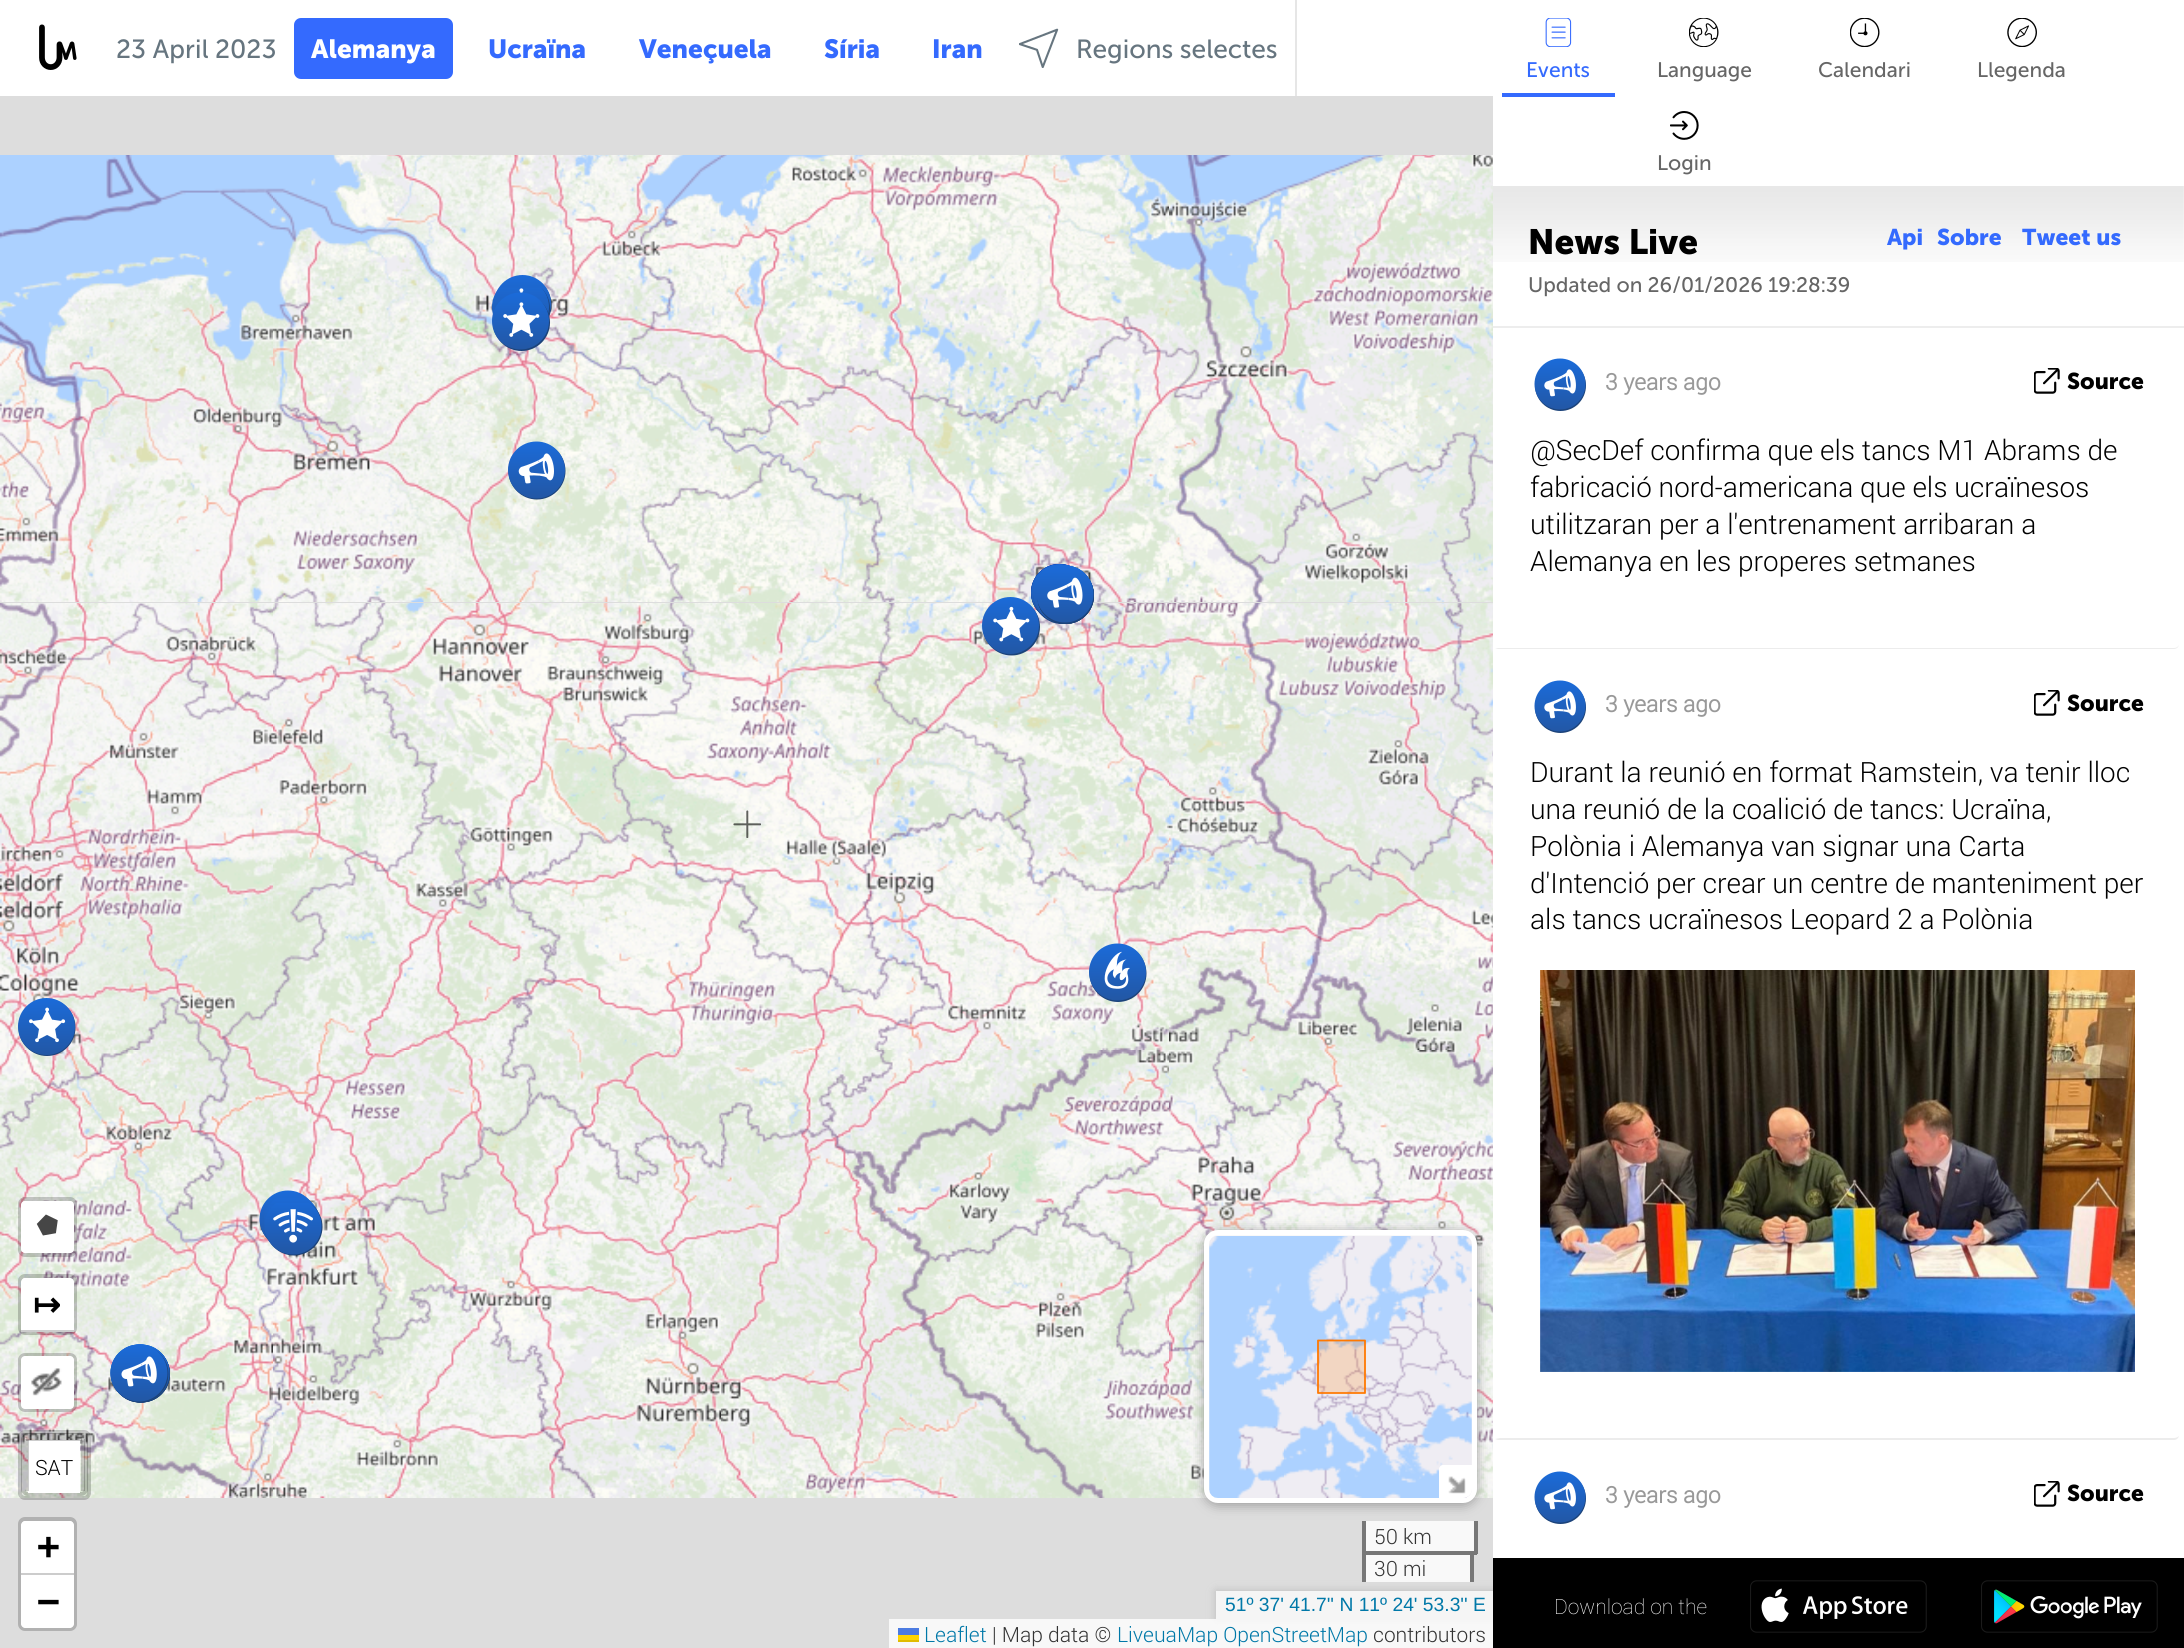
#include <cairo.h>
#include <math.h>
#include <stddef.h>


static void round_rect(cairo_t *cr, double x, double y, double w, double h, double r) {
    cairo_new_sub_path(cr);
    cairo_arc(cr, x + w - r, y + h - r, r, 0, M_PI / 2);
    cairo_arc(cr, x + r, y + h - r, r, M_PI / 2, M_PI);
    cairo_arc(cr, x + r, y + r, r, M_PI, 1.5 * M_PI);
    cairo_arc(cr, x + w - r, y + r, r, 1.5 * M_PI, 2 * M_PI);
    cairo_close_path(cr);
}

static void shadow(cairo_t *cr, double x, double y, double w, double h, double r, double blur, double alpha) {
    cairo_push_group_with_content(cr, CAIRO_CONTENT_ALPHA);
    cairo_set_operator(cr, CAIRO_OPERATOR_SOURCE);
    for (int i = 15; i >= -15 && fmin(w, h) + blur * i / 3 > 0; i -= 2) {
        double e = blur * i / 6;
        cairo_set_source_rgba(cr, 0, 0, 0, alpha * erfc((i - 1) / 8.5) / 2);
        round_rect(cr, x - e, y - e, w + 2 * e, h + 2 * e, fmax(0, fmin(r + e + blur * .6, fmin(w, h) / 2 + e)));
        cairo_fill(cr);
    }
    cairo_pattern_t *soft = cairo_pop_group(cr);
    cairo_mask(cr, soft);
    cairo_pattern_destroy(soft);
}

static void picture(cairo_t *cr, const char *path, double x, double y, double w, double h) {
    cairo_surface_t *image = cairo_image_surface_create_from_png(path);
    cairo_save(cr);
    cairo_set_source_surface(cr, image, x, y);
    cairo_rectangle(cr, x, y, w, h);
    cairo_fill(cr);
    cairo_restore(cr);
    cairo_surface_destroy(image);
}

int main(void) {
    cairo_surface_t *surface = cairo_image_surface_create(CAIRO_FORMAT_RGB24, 2184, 1648);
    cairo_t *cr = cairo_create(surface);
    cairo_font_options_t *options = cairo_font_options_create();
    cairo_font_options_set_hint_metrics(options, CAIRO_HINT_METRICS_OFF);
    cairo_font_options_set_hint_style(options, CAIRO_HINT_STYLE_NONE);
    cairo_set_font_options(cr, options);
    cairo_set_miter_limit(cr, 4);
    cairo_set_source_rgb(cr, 0.867, 0.867, 0.867);
    cairo_paint(cr);
    cairo_set_source_rgb(cr, 1, 1, 1);
    cairo_rectangle(cr, 0, 0, 1493, 96);
    cairo_fill(cr);
    picture(cr, "img1.png", 39, 24, 38, 46);
    cairo_select_font_face(cr, "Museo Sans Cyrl", CAIRO_FONT_SLANT_NORMAL, CAIRO_FONT_WEIGHT_NORMAL);
    cairo_set_font_size(cr, 26.25);
    cairo_set_source_rgb(cr, 0.4, 0.459, 0.498);
    cairo_move_to(cr, 116, 58);
    cairo_show_text(cr, "23 April 2023");
    cairo_set_source_rgb(cr, 0.204, 0.416, 0.996);
    round_rect(cr, 294, 18, 159, 61, 7);
    cairo_fill(cr);
    cairo_select_font_face(cr, "Museo Sans Cyrl", CAIRO_FONT_SLANT_NORMAL, CAIRO_FONT_WEIGHT_BOLD);
    cairo_set_source_rgb(cr, 1, 1, 1);
    cairo_move_to(cr, 311, 58);
    cairo_show_text(cr, "Alemanya");
    cairo_set_source_rgb(cr, 0.204, 0.416, 0.996);
    cairo_move_to(cr, 488, 58);
    cairo_show_text(cr, "Ucraïna");
    cairo_move_to(cr, 639, 58);
    cairo_show_text(cr, "Veneçuela");
    cairo_move_to(cr, 824, 58);
    cairo_show_text(cr, "Síria");
    cairo_move_to(cr, 932, 58);
    cairo_show_text(cr, "Iran");
    picture(cr, "img2.png", 1019, 28, 40, 40);
    cairo_select_font_face(cr, "Museo Sans Cyrl", CAIRO_FONT_SLANT_NORMAL, CAIRO_FONT_WEIGHT_NORMAL);
    cairo_set_source_rgb(cr, 0.4, 0.459, 0.498);
    cairo_move_to(cr, 1076, 58);
    cairo_show_text(cr, "Regions selectes");
    cairo_set_source_rgb(cr, 0.902, 0.902, 0.902);
    cairo_rectangle(cr, 1295, 0, 2, 96);
    cairo_fill(cr);
    cairo_set_source_rgb(cr, 0.973, 0.973, 0.973);
    cairo_rectangle(cr, 1366, 1555, 104, 27);
    cairo_fill(cr);
    picture(cr, "img3.png", 0, 155, 273, 447);
    picture(cr, "img4.png", 273, 155, 448, 447);
    picture(cr, "img5.png", 721, 155, 448, 447);
    picture(cr, "img6.png", 1169, 155, 324, 447);
    picture(cr, "img7.png", 0, 603, 273, 447);
    picture(cr, "img8.png", 273, 603, 448, 447);
    picture(cr, "img9.png", 721, 603, 448, 447);
    picture(cr, "img10.png", 1169, 603, 324, 447);
    picture(cr, "img11.png", 0, 1050, 273, 448);
    picture(cr, "img12.png", 273, 1050, 448, 448);
    picture(cr, "img13.png", 721, 1050, 448, 448);
    picture(cr, "img14.png", 1169, 1050, 324, 448);
    picture(cr, "img15.png", 494, 275, 58, 42);
    picture(cr, "img16.png", 492, 288, 58, 28);
    picture(cr, "img17.png", 492, 292, 58, 59);
    picture(cr, "img18.png", 508, 441, 58, 59);
    picture(cr, "img19.png", 1031, 564, 41, 54);
    picture(cr, "img20.png", 1031, 564, 41, 54);
    picture(cr, "img21.png", 1031, 564, 41, 54);
    picture(cr, "img22.png", 1031, 564, 41, 54);
    picture(cr, "img28.png", 1033, 567, 36, 57);
    picture(cr, "img23.png", 1037, 565, 57, 59);
    picture(cr, "img24.png", 1038, 565, 56, 59);
    picture(cr, "img25.png", 1038, 565, 56, 59);
    picture(cr, "img26.png", 1040, 565, 54, 59);
    picture(cr, "img27.png", 982, 597, 58, 59);
    picture(cr, "img29.png", 1089, 943, 58, 59);
    picture(cr, "img30.png", 18, 998, 58, 58);
    picture(cr, "img31.png", 259, 1190, 54, 52);
    picture(cr, "img32.png", 264, 1198, 56, 44);
    picture(cr, "img33.png", 265, 1203, 58, 53);
    picture(cr, "img37.png", 124, 1344, 46, 59);
    picture(cr, "img34.png", 110, 1344, 52, 59);
    picture(cr, "img35.png", 110, 1344, 52, 59);
    picture(cr, "img38.png", 124, 1344, 46, 59);
    picture(cr, "img39.png", 124, 1344, 46, 59);
    picture(cr, "img36.png", 110, 1344, 59, 59);
    picture(cr, "img40.png", 733, 810, 28, 28);
    round_rect(cr, 20, 1199, 55, 56, 5);
    cairo_set_source_rgba(cr, 0, 0, 0, 0.2);
    cairo_set_line_width(cr, 4);
    cairo_stroke(cr);
    cairo_set_source_rgb(cr, 1, 1, 1);
    round_rect(cr, 21, 1201, 53, 52, 4);
    cairo_fill(cr);
    picture(cr, "img41.png", 36, 1214, 22, 22);
    round_rect(cr, 20, 1276, 55, 57, 5);
    cairo_set_source_rgba(cr, 0, 0, 0, 0.2);
    cairo_stroke(cr);
    cairo_set_source_rgb(cr, 1, 1, 1);
    cairo_new_path(cr);
    cairo_move_to(cr, 25, 1278);
    cairo_line_to(cr, 70, 1278);
    cairo_curve_to(cr, 72, 1278, 74, 1280, 74, 1282);
    cairo_line_to(cr, 74, 1332);
    cairo_line_to(cr, 21, 1332);
    cairo_line_to(cr, 21, 1282);
    cairo_curve_to(cr, 21, 1280, 23, 1278, 25, 1278);
    cairo_close_path(cr);
    cairo_fill(cr);
    cairo_set_source_rgb(cr, 0.8, 0.8, 0.8);
    cairo_rectangle(cr, 21, 1330, 53, 2);
    cairo_fill(cr);
    cairo_select_font_face(cr, "DejaVu Sans", CAIRO_FONT_SLANT_NORMAL, CAIRO_FONT_WEIGHT_BOLD);
    cairo_set_font_size(cr, 33);
    cairo_set_source_rgb(cr, 0, 0, 0);
    cairo_move_to(cr, 33, 1316);
    cairo_show_text(cr, "↦");
    round_rect(cr, 20, 1355, 55, 55, 5);
    cairo_set_source_rgba(cr, 0, 0, 0, 0.2);
    cairo_stroke(cr);
    cairo_set_source_rgb(cr, 1, 1, 1);
    round_rect(cr, 21, 1356, 53, 53, 4);
    cairo_fill(cr);
    picture(cr, "img42.png", 31, 1368, 31, 28);
    round_rect(cr, 20, 1432, 69, 66, 5);
    cairo_set_source_rgba(cr, 0, 0, 0, 0.2);
    cairo_stroke(cr);
    round_rect(cr, 23, 1435, 63, 59, 5);
    cairo_stroke(cr);
    cairo_set_source_rgb(cr, 1, 1, 1);
    cairo_new_path(cr);
    cairo_move_to(cr, 28, 1440);
    cairo_line_to(cr, 80, 1440);
    cairo_line_to(cr, 80, 1493);
    cairo_line_to(cr, 28, 1493);
    cairo_line_to(cr, 28, 1489);
    cairo_close_path(cr);
    cairo_fill(cr);
    cairo_set_source_rgba(cr, 0, 0, 0, 0.2);
    cairo_rectangle(cr, 26, 1437, 56, 4);
    cairo_fill(cr);
    cairo_rectangle(cr, 81, 1439, 4, 52);
    cairo_fill(cr);
    cairo_rectangle(cr, 25, 1439, 4, 52);
    cairo_fill(cr);
    cairo_select_font_face(cr, "Roboto Light", CAIRO_FONT_SLANT_NORMAL, CAIRO_FONT_WEIGHT_NORMAL);
    cairo_set_font_size(cr, 21);
    cairo_set_source_rgb(cr, 0, 0, 0);
    cairo_move_to(cr, 35, 1475);
    cairo_show_text(cr, "SAT");
    round_rect(cr, 20, 1519, 55, 110, 5);
    cairo_set_source_rgb(cr, 0.694, 0.694, 0.694);
    cairo_stroke(cr);
    cairo_set_source_rgb(cr, 1, 1, 1);
    cairo_new_path(cr);
    cairo_move_to(cr, 25, 1521);
    cairo_line_to(cr, 70, 1521);
    cairo_curve_to(cr, 72, 1521, 74, 1523, 74, 1525);
    cairo_line_to(cr, 74, 1575);
    cairo_line_to(cr, 21, 1575);
    cairo_line_to(cr, 21, 1525);
    cairo_curve_to(cr, 21, 1523, 23, 1521, 25, 1521);
    cairo_close_path(cr);
    cairo_fill(cr);
    cairo_set_source_rgb(cr, 0.8, 0.8, 0.8);
    cairo_rectangle(cr, 21, 1573, 53, 2);
    cairo_fill(cr);
    cairo_select_font_face(cr, "DejaVu Sans Mono", CAIRO_FONT_SLANT_NORMAL, CAIRO_FONT_WEIGHT_BOLD);
    cairo_set_font_size(cr, 38);
    cairo_set_source_rgb(cr, 0, 0, 0);
    cairo_move_to(cr, 37, 1559);
    cairo_show_text(cr, "+");
    cairo_set_source_rgb(cr, 1, 1, 1);
    cairo_new_path(cr);
    cairo_move_to(cr, 21, 1575);
    cairo_line_to(cr, 74, 1575);
    cairo_line_to(cr, 74, 1624);
    cairo_curve_to(cr, 74, 1626, 72, 1628, 70, 1628);
    cairo_line_to(cr, 25, 1628);
    cairo_curve_to(cr, 23, 1628, 21, 1626, 21, 1624);
    cairo_close_path(cr);
    cairo_fill(cr);
    cairo_set_source_rgb(cr, 0, 0, 0);
    cairo_move_to(cr, 37, 1614);
    cairo_show_text(cr, "−");
    cairo_set_source_rgb(cr, 0.6, 0.6, 0.6);
    shadow(cr, 1204, 1232, 273, 273, 14, 6, 1);
    cairo_set_source_rgb(cr, 0.973, 0.973, 0.976);
    round_rect(cr, 1206.5, 1232.5, 268, 268, 11.5);
    cairo_fill_preserve(cr);
    cairo_set_source_rgb(cr, 1, 1, 1);
    cairo_set_line_width(cr, 5);
    cairo_stroke(cr);
    picture(cr, "img43.png", 1209, 1236, 75, 262);
    picture(cr, "img44.png", 1284, 1236, 188, 262);
    cairo_set_source_rgba(cr, 1, 0.471, 0, 0.2);
    cairo_rectangle(cr, 1318, 1341, 47, 52);
    cairo_fill(cr);
    cairo_new_path(cr);
    cairo_move_to(cr, 1318, 1393);
    cairo_line_to(cr, 1318, 1340.5);
    cairo_line_to(cr, 1365, 1340.5);
    cairo_line_to(cr, 1365, 1393);
    cairo_close_path(cr);
    cairo_set_source_rgb(cr, 1, 0.471, 0);
    cairo_set_line_width(cr, 1.8);
    cairo_set_line_cap(cr, CAIRO_LINE_CAP_ROUND);
    cairo_set_line_join(cr, CAIRO_LINE_JOIN_ROUND);
    cairo_stroke(cr);
    cairo_set_source_rgb(cr, 1, 1, 1);
    cairo_new_path(cr);
    cairo_move_to(cr, 1443, 1465);
    cairo_line_to(cr, 1472, 1465);
    cairo_line_to(cr, 1472, 1489);
    cairo_curve_to(cr, 1472, 1494, 1468, 1498, 1463, 1498);
    cairo_line_to(cr, 1439, 1498);
    cairo_line_to(cr, 1439, 1469);
    cairo_curve_to(cr, 1439, 1467, 1441, 1465, 1443, 1465);
    cairo_close_path(cr);
    cairo_fill(cr);
    picture(cr, "img45.png", 1448, 1476, 18, 18);
    cairo_set_source_rgb(cr, 0.973, 0.973, 0.973);
    cairo_rectangle(cr, 1366, 1521, 108, 30);
    cairo_fill(cr);
    cairo_set_source_rgb(cr, 0.467, 0.467, 0.467);
    cairo_rectangle(cr, 1474, 1521, 4, 33);
    cairo_fill(cr);
    cairo_rectangle(cr, 1474, 1551, 3, 4);
    cairo_fill(cr);
    cairo_rectangle(cr, 1362, 1521, 4, 33);
    cairo_fill(cr);
    cairo_select_font_face(cr, "Roboto Light", CAIRO_FONT_SLANT_NORMAL, CAIRO_FONT_WEIGHT_NORMAL);
    cairo_set_font_size(cr, 21);
    cairo_set_source_rgb(cr, 0.2, 0.2, 0.2);
    cairo_move_to(cr, 1374, 1544);
    cairo_show_text(cr, "50 km");
    cairo_set_source_rgb(cr, 0.467, 0.467, 0.467);
    cairo_rectangle(cr, 1362, 1551, 112, 4);
    cairo_fill(cr);
    cairo_rectangle(cr, 1470, 1551, 4, 31);
    cairo_fill(cr);
    cairo_rectangle(cr, 1362, 1551, 4, 31);
    cairo_fill(cr);
    cairo_set_source_rgb(cr, 0.2, 0.2, 0.2);
    cairo_move_to(cr, 1374, 1576);
    cairo_show_text(cr, "30 mi");
    cairo_save(cr);
    cairo_set_fill_rule(cr, CAIRO_FILL_RULE_EVEN_ODD);
    cairo_new_path(cr);
    cairo_move_to(cr, 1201, 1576);
    cairo_line_to(cr, 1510, 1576);
    cairo_line_to(cr, 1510, 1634);
    cairo_line_to(cr, 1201, 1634);
    cairo_close_path(cr);
    cairo_move_to(cr, 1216, 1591);
    cairo_line_to(cr, 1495, 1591);
    cairo_line_to(cr, 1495, 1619);
    cairo_line_to(cr, 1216, 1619);
    cairo_close_path(cr);
    cairo_clip(cr);
    cairo_set_source_rgb(cr, 0.733, 0.733, 0.733);
    shadow(cr, 1216, 1591, 279, 28, 0, 4.5, 1);
    cairo_restore(cr);
    cairo_set_source_rgba(cr, 1, 1, 1, 0.7);
    cairo_rectangle(cr, 1216, 1591, 277, 28);
    cairo_fill(cr);
    cairo_select_font_face(cr, "Liberation Sans", CAIRO_FONT_SLANT_NORMAL, CAIRO_FONT_WEIGHT_NORMAL);
    cairo_set_font_size(cr, 19.25);
    cairo_set_source_rgb(cr, 0, 0.471, 0.659);
    cairo_move_to(cr, 1225, 1611);
    cairo_show_text(cr, "51º 37' 41.7'' N 11º 24' 53.3'' E");
    cairo_set_source_rgba(cr, 1, 1, 1, 0.8);
    cairo_rectangle(cr, 889, 1619, 604, 29);
    cairo_fill(cr);
    cairo_select_font_face(cr, "Roboto Light", CAIRO_FONT_SLANT_NORMAL, CAIRO_FONT_WEIGHT_NORMAL);
    cairo_set_font_size(cr, 21);
    cairo_set_source_rgb(cr, 0, 0.471, 0.659);
    cairo_move_to(cr, 924, 1642);
    cairo_show_text(cr, "Leaflet");
    cairo_set_source_rgb(cr, 0.298, 0.482, 0.882);
    cairo_rectangle(cr, 898, 1628, 21, 7);
    cairo_fill(cr);
    cairo_set_source_rgb(cr, 1, 0.835, 0);
    cairo_rectangle(cr, 898, 1635, 21, 5);
    cairo_fill(cr);
    cairo_set_source_rgb(cr, 0.878, 0.737, 0);
    cairo_rectangle(cr, 898, 1640, 21, 2);
    cairo_fill(cr);
    cairo_set_source_rgb(cr, 0.2, 0.2, 0.2);
    cairo_move_to(cr, 992, 1642);
    cairo_show_text(cr, "| Map data ©");
    cairo_set_source_rgb(cr, 0, 0.471, 0.659);
    cairo_move_to(cr, 1117, 1642);
    cairo_show_text(cr, "LiveuaMap OpenStreetMap");
    cairo_set_source_rgb(cr, 0.2, 0.2, 0.2);
    cairo_move_to(cr, 1373, 1642);
    cairo_show_text(cr, "contributors");
    cairo_set_source_rgb(cr, 1, 1, 1);
    cairo_rectangle(cr, 1493, 0, 691, 1558);
    cairo_fill(cr);
    cairo_set_source_rgb(cr, 0.204, 0.416, 0.996);
    cairo_rectangle(cr, 1502, 93, 113, 4);
    cairo_fill(cr);
    picture(cr, "img46.png", 1545, 18, 27, 29);
    cairo_select_font_face(cr, "Museo Sans Cyrl", CAIRO_FONT_SLANT_NORMAL, CAIRO_FONT_WEIGHT_NORMAL);
    cairo_move_to(cr, 1526, 77);
    cairo_show_text(cr, "Events");
    picture(cr, "img47.png", 1689, 18, 30, 29);
    cairo_set_source_rgb(cr, 0.4, 0.4, 0.4);
    cairo_move_to(cr, 1657, 77);
    cairo_show_text(cr, "Language");
    picture(cr, "img48.png", 1850, 18, 30, 29);
    cairo_move_to(cr, 1818, 77);
    cairo_show_text(cr, "Calendari");
    picture(cr, "img49.png", 2007, 18, 30, 29);
    cairo_move_to(cr, 1977, 77);
    cairo_show_text(cr, "Llegenda");
    picture(cr, "img50.png", 1670, 111, 29, 29);
    cairo_move_to(cr, 1657, 170);
    cairo_show_text(cr, "Login");
    picture(cr, "img51.png", 1493, 186, 691, 76);
    cairo_set_source_rgb(cr, 0.929, 0.929, 0.929);
    cairo_rectangle(cr, 1493, 326, 691, 2);
    cairo_fill(cr);
    cairo_select_font_face(cr, "Museo Sans Cyrl", CAIRO_FONT_SLANT_NORMAL, CAIRO_FONT_WEIGHT_BOLD);
    cairo_set_font_size(cr, 35);
    cairo_set_source_rgb(cr, 0, 0, 0);
    cairo_move_to(cr, 1528, 254);
    cairo_show_text(cr, "News Live");
    cairo_select_font_face(cr, "Museo Sans Cyrl", CAIRO_FONT_SLANT_NORMAL, CAIRO_FONT_WEIGHT_NORMAL);
    cairo_set_font_size(cr, 21);
    cairo_set_source_rgb(cr, 0.4, 0.4, 0.4);
    cairo_move_to(cr, 1528, 292);
    cairo_show_text(cr, "Updated on 26/01/2026 19:28:39");
    cairo_select_font_face(cr, "Museo Sans Cyrl", CAIRO_FONT_SLANT_NORMAL, CAIRO_FONT_WEIGHT_BOLD);
    cairo_set_font_size(cr, 22.75);
    cairo_set_source_rgb(cr, 0.204, 0.416, 0.996);
    cairo_move_to(cr, 1887, 245);
    cairo_show_text(cr, "Api");
    cairo_move_to(cr, 1937, 245);
    cairo_show_text(cr, "Sobre");
    cairo_move_to(cr, 2022, 245);
    cairo_show_text(cr, "Tweet us");
    cairo_set_source_rgb(cr, 0.925, 0.925, 0.925);
    cairo_new_path(cr);
    cairo_move_to(cr, 2179, 645);
    cairo_curve_to(cr, 2178, 648, 2176, 649, 2174, 649);
    cairo_line_to(cr, 1498, 649);
    cairo_line_to(cr, 1495, 648);
    cairo_line_to(cr, 1498, 648);
    cairo_line_to(cr, 2174, 648);
    cairo_curve_to(cr, 2176, 648, 2178, 647, 2179, 645);
    cairo_close_path(cr);
    cairo_fill(cr);
    picture(cr, "img52.png", 1534, 358, 52, 53);
    cairo_select_font_face(cr, "Roboto", CAIRO_FONT_SLANT_NORMAL, CAIRO_FONT_WEIGHT_BOLD);
    cairo_set_source_rgb(cr, 0.6, 0.6, 0.6);
    cairo_move_to(cr, 1605, 390);
    cairo_show_text(cr, "3 years ago");
    picture(cr, "img53.png", 2034, 368, 26, 26);
    cairo_select_font_face(cr, "Museo Sans Cyrl", CAIRO_FONT_SLANT_NORMAL, CAIRO_FONT_WEIGHT_BOLD);
    cairo_set_source_rgb(cr, 0, 0, 0);
    cairo_move_to(cr, 2067, 389);
    cairo_show_text(cr, "Source");
    cairo_select_font_face(cr, "Roboto Light", CAIRO_FONT_SLANT_NORMAL, CAIRO_FONT_WEIGHT_NORMAL);
    cairo_set_font_size(cr, 28);
    cairo_move_to(cr, 1530, 460);
    cairo_show_text(cr, "@SecDef confirma que els tancs M1 Abrams de");
    cairo_move_to(cr, 1530, 497);
    cairo_show_text(cr, "fabricació nord-americana que els ucraïnesos");
    cairo_move_to(cr, 1530, 534);
    cairo_show_text(cr, "utilitzaran per a l'entrenament arribaran a");
    cairo_move_to(cr, 1530, 571);
    cairo_show_text(cr, "Alemanya en les properes setmanes");
    cairo_set_source_rgb(cr, 0.925, 0.925, 0.925);
    cairo_new_path(cr);
    cairo_move_to(cr, 2179, 1436);
    cairo_curve_to(cr, 2178, 1439, 2176, 1440, 2174, 1440);
    cairo_line_to(cr, 1498, 1440);
    cairo_line_to(cr, 1495, 1439);
    cairo_line_to(cr, 1500, 1438);
    cairo_line_to(cr, 2174, 1438);
    cairo_curve_to(cr, 2176, 1438, 2178, 1437, 2179, 1436);
    cairo_close_path(cr);
    cairo_fill(cr);
    picture(cr, "img52.png", 1534, 680, 52, 53);
    cairo_select_font_face(cr, "Roboto", CAIRO_FONT_SLANT_NORMAL, CAIRO_FONT_WEIGHT_BOLD);
    cairo_set_font_size(cr, 22.75);
    cairo_set_source_rgb(cr, 0.6, 0.6, 0.6);
    cairo_move_to(cr, 1605, 712);
    cairo_show_text(cr, "3 years ago");
    picture(cr, "img53.png", 2034, 690, 26, 26);
    cairo_select_font_face(cr, "Museo Sans Cyrl", CAIRO_FONT_SLANT_NORMAL, CAIRO_FONT_WEIGHT_BOLD);
    cairo_set_source_rgb(cr, 0, 0, 0);
    cairo_move_to(cr, 2067, 711);
    cairo_show_text(cr, "Source");
    cairo_select_font_face(cr, "Roboto Light", CAIRO_FONT_SLANT_NORMAL, CAIRO_FONT_WEIGHT_NORMAL);
    cairo_set_font_size(cr, 28);
    cairo_move_to(cr, 1530, 782);
    cairo_show_text(cr, "Durant la reunió en format Ramstein, va tenir lloc");
    cairo_move_to(cr, 1530, 819);
    cairo_show_text(cr, "una reunió de la coalició de tancs: Ucraïna,");
    cairo_move_to(cr, 1530, 856);
    cairo_show_text(cr, "Polònia i Alemanya van signar una Carta");
    cairo_move_to(cr, 1530, 893);
    cairo_show_text(cr, "d'Intenció per crear un centre de manteniment per");
    cairo_move_to(cr, 1530, 929);
    cairo_show_text(cr, "als tancs ucraïnesos Leopard 2 a Polònia");
    picture(cr, "img54.png", 1540, 970, 595, 402);
    picture(cr, "img52.png", 1534, 1471, 52, 53);
    cairo_select_font_face(cr, "Roboto", CAIRO_FONT_SLANT_NORMAL, CAIRO_FONT_WEIGHT_BOLD);
    cairo_set_font_size(cr, 22.75);
    cairo_set_source_rgb(cr, 0.6, 0.6, 0.6);
    cairo_move_to(cr, 1605, 1503);
    cairo_show_text(cr, "3 years ago");
    picture(cr, "img53.png", 2034, 1481, 26, 26);
    cairo_select_font_face(cr, "Museo Sans Cyrl", CAIRO_FONT_SLANT_NORMAL, CAIRO_FONT_WEIGHT_BOLD);
    cairo_set_source_rgb(cr, 0, 0, 0);
    cairo_move_to(cr, 2067, 1501);
    cairo_show_text(cr, "Source");
    cairo_rectangle(cr, 1493, 1558, 691, 90);
    cairo_fill(cr);
    cairo_select_font_face(cr, "Roboto Thin", CAIRO_FONT_SLANT_NORMAL, CAIRO_FONT_WEIGHT_NORMAL);
    cairo_set_font_size(cr, 21);
    cairo_set_source_rgb(cr, 1, 1, 1);
    cairo_move_to(cr, 1554, 1614);
    cairo_show_text(cr, "Download on the");
    picture(cr, "img55.png", 1750, 1580, 177, 53);
    picture(cr, "img56.png", 1981, 1580, 177, 53);
    cairo_surface_write_to_png(surface, "page.png");
    cairo_font_options_destroy(options);
    cairo_destroy(cr);
    cairo_surface_destroy(surface);
    return 0;
}
